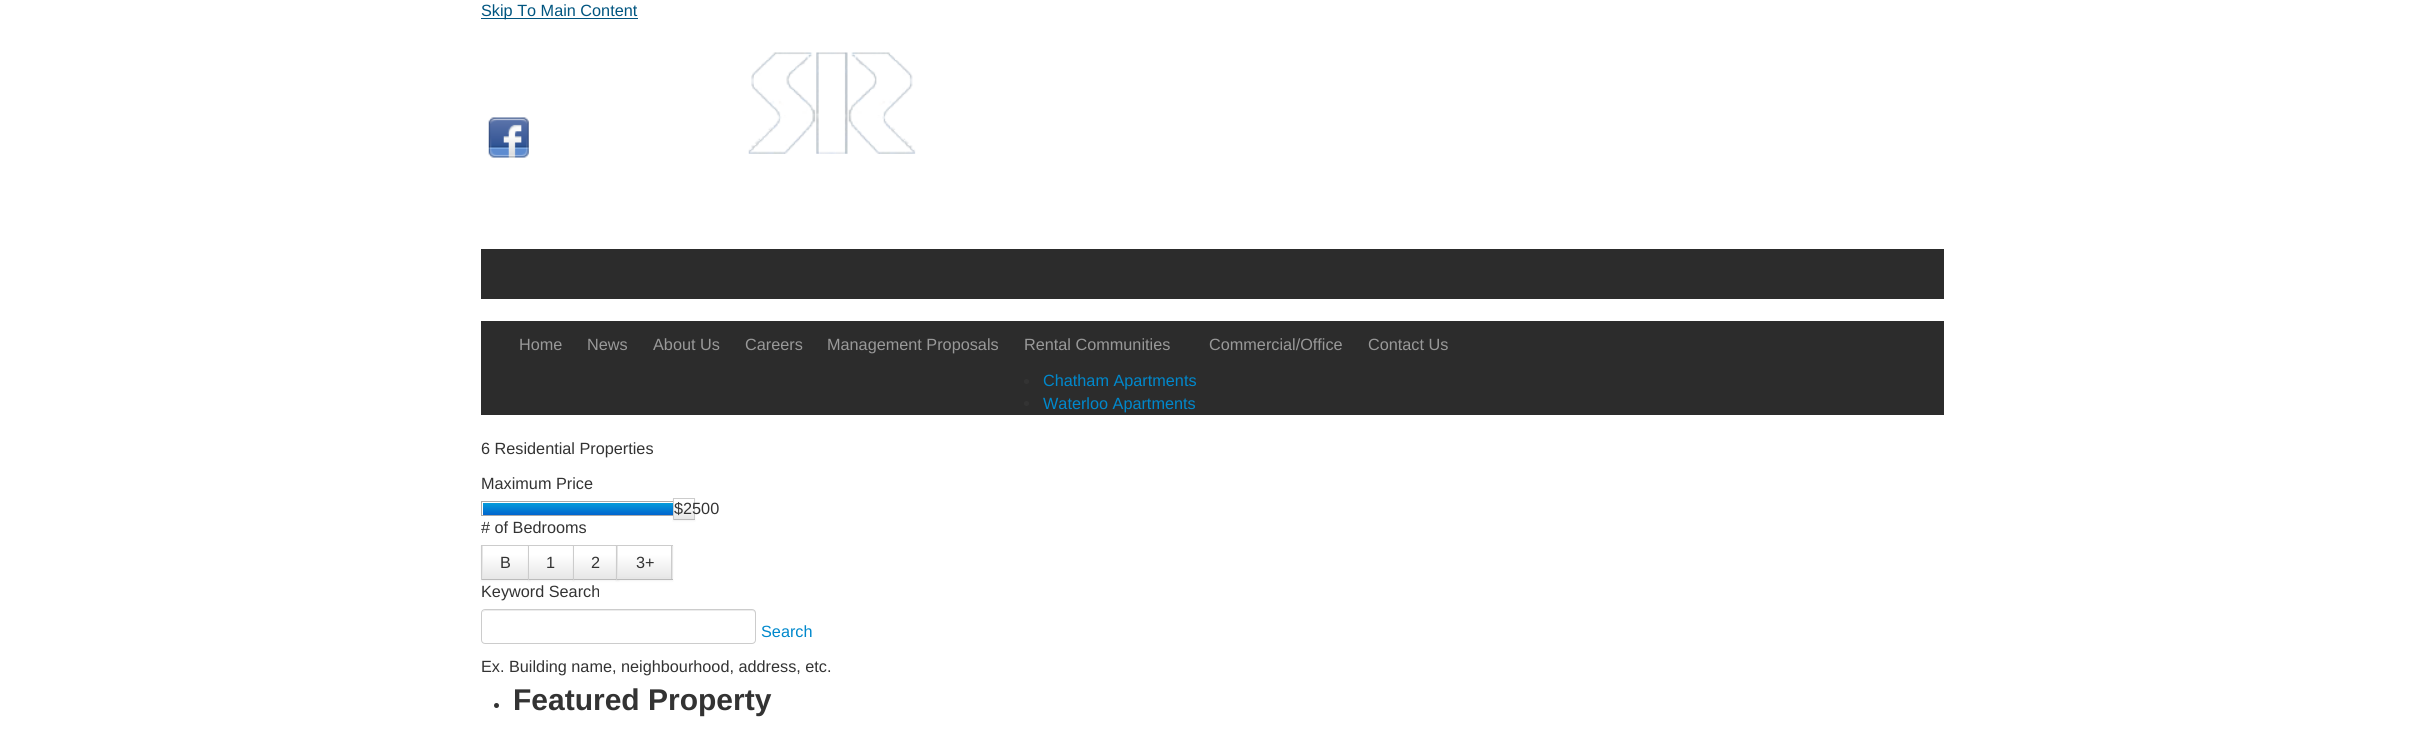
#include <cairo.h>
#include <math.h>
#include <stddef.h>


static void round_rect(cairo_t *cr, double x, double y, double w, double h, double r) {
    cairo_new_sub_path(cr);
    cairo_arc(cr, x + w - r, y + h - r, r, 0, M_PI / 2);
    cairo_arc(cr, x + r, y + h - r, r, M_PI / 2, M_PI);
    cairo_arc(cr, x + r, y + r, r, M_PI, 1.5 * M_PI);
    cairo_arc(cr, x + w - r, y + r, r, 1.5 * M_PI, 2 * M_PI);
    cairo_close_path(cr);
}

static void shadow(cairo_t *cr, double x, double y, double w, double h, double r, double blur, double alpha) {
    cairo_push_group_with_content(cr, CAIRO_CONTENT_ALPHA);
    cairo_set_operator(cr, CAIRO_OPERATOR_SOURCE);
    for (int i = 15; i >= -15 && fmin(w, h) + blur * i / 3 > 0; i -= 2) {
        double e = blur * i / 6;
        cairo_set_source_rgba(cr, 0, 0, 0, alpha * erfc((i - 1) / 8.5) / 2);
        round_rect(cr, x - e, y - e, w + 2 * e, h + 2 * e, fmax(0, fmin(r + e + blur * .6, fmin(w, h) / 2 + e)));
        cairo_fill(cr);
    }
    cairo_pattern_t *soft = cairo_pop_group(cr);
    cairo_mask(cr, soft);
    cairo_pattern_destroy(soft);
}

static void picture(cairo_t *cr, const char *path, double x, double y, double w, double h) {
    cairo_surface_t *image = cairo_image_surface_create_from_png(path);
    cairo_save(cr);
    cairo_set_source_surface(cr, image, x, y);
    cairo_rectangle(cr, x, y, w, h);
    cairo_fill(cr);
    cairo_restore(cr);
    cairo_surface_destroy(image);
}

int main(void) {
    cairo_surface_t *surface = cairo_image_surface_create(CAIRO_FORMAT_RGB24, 2425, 742);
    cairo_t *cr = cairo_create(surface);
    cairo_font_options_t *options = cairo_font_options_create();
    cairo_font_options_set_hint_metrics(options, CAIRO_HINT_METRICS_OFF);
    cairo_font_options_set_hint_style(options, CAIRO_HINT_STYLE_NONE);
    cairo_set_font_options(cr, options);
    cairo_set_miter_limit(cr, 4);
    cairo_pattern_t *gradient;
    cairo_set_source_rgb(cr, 1, 1, 1);
    cairo_paint(cr);
    cairo_set_source_rgb(cr, 0, 0.333, 0.502);
    cairo_rectangle(cr, 481, 18, 157, 1);
    cairo_fill(cr);
    cairo_select_font_face(cr, "Liberation Sans", CAIRO_FONT_SLANT_NORMAL, CAIRO_FONT_WEIGHT_NORMAL);
    cairo_set_font_size(cr, 16.25);
    cairo_move_to(cr, 481, 16);
    cairo_show_text(cr, "Skip To Main Content");
    picture(cr, "img1.png", 488, 117, 41, 41);
    picture(cr, "img2.png", 748, 52, 168, 102);
    cairo_set_source_rgb(cr, 0.173, 0.173, 0.173);
    cairo_rectangle(cr, 481, 249, 1463, 50);
    cairo_fill(cr);
    cairo_rectangle(cr, 481, 321, 1463, 94);
    cairo_fill(cr);
    cairo_set_source_rgb(cr, 0.6, 0.6, 0.6);
    cairo_move_to(cr, 519, 350);
    cairo_show_text(cr, "Home");
    cairo_move_to(cr, 587, 350);
    cairo_show_text(cr, "News");
    cairo_move_to(cr, 653, 350);
    cairo_show_text(cr, "About Us");
    cairo_move_to(cr, 745, 350);
    cairo_show_text(cr, "Careers");
    cairo_move_to(cr, 827, 350);
    cairo_show_text(cr, "Management Proposals");
    cairo_move_to(cr, 1024, 350);
    cairo_show_text(cr, "Rental Communities");
    cairo_set_source_rgb(cr, 0.2, 0.2, 0.2);
    cairo_new_path(cr);
    cairo_arc(cr, 1026.5, 381.5, 2.5, 0, 2 * M_PI);
    cairo_fill(cr);
    cairo_set_source_rgb(cr, 0, 0.533, 0.8);
    cairo_move_to(cr, 1043, 386);
    cairo_show_text(cr, "Chatham Apartments");
    cairo_set_source_rgb(cr, 0.2, 0.2, 0.2);
    cairo_new_path(cr);
    cairo_arc(cr, 1026.5, 403.5, 2.5, 0, 2 * M_PI);
    cairo_fill(cr);
    cairo_set_source_rgb(cr, 0, 0.533, 0.8);
    cairo_move_to(cr, 1043, 409);
    cairo_show_text(cr, "Waterloo Apartments");
    cairo_set_source_rgb(cr, 0.6, 0.6, 0.6);
    cairo_move_to(cr, 1209, 350);
    cairo_show_text(cr, "Commercial/Office");
    cairo_move_to(cr, 1368, 350);
    cairo_show_text(cr, "Contact Us");
    cairo_set_source_rgb(cr, 0.2, 0.2, 0.2);
    cairo_move_to(cr, 481, 454);
    cairo_show_text(cr, "6 Residential Properties");
    cairo_move_to(cr, 481, 489);
    cairo_show_text(cr, "Maximum Price");
    cairo_rectangle(cr, 481.5, 501.5, 202, 14);
    cairo_set_source_rgb(cr, 0.667, 0.667, 0.667);
    cairo_set_line_width(cr, 1);
    cairo_stroke(cr);
    gradient = cairo_pattern_create_linear(583, 503, 583, 515);
    cairo_pattern_add_color_stop_rgba(gradient, 0, 0.016, 0.612, 0.859, 1);
    cairo_pattern_add_color_stop_rgba(gradient, 1, 0, 0.392, 0.804, 1);
    cairo_set_source(cr, gradient);
    cairo_pattern_destroy(gradient);
    cairo_rectangle(cr, 483, 503, 190, 12);
    cairo_fill(cr);
    cairo_set_source_rgb(cr, 0, 0, 0);
    shadow(cr, 673, 499, 22, 22, 0, 1, 0.05);
    gradient = cairo_pattern_create_linear(684, 499, 684, 519);
    cairo_pattern_add_color_stop_rgba(gradient, 0, 1, 1, 1, 1);
    cairo_pattern_add_color_stop_rgba(gradient, 0.25, 1, 1, 1, 1);
    cairo_pattern_add_color_stop_rgba(gradient, 1, 0.902, 0.902, 0.902, 1);
    cairo_set_source(cr, gradient);
    cairo_pattern_destroy(gradient);
    cairo_rectangle(cr, 674, 499, 20, 20);
    cairo_fill(cr);
    cairo_set_source_rgb(cr, 0.8, 0.8, 0.8);
    cairo_rectangle(cr, 673, 498, 22, 1);
    cairo_fill(cr);
    cairo_rectangle(cr, 694, 498, 1, 22);
    cairo_fill(cr);
    cairo_set_source_rgb(cr, 0.733, 0.733, 0.733);
    cairo_rectangle(cr, 673, 519, 22, 1);
    cairo_fill(cr);
    cairo_set_source_rgb(cr, 0.8, 0.8, 0.8);
    cairo_rectangle(cr, 673, 498, 1, 22);
    cairo_fill(cr);
    cairo_set_source_rgb(cr, 0.2, 0.2, 0.2);
    cairo_move_to(cr, 674, 514);
    cairo_show_text(cr, "$2500");
    cairo_move_to(cr, 481, 533);
    cairo_show_text(cr, "# of Bedrooms");
    cairo_set_source_rgb(cr, 0, 0, 0);
    shadow(cr, 481, 546, 49, 35, 0, 1, 0.05);
    cairo_set_source_rgb(cr, 0.902, 0.902, 0.902);
    cairo_rectangle(cr, 482, 546, 1, 33);
    cairo_fill(cr);
    gradient = cairo_pattern_create_linear(506, 546, 506, 579);
    cairo_pattern_add_color_stop_rgba(gradient, 0, 1, 1, 1, 1);
    cairo_pattern_add_color_stop_rgba(gradient, 0.25, 1, 1, 1, 1);
    cairo_pattern_add_color_stop_rgba(gradient, 1, 0.902, 0.902, 0.902, 1);
    cairo_set_source(cr, gradient);
    cairo_pattern_destroy(gradient);
    cairo_rectangle(cr, 483, 546, 45, 33);
    cairo_fill(cr);
    cairo_set_source_rgb(cr, 0.8, 0.8, 0.8);
    cairo_rectangle(cr, 481, 545, 49, 1);
    cairo_fill(cr);
    cairo_set_source_rgb(cr, 0.733, 0.733, 0.733);
    cairo_rectangle(cr, 481, 579, 49, 1);
    cairo_fill(cr);
    cairo_set_source_rgb(cr, 0.8, 0.8, 0.8);
    cairo_rectangle(cr, 481, 545, 1, 35);
    cairo_fill(cr);
    cairo_set_source_rgb(cr, 0.2, 0.2, 0.2);
    cairo_move_to(cr, 500, 568);
    cairo_show_text(cr, "B");
    cairo_set_source_rgb(cr, 0, 0, 0);
    shadow(cr, 528, 546, 46, 35, 0, 1, 0.05);
    gradient = cairo_pattern_create_linear(551, 546, 551, 579);
    cairo_pattern_add_color_stop_rgba(gradient, 0, 1, 1, 1, 1);
    cairo_pattern_add_color_stop_rgba(gradient, 0.25, 1, 1, 1, 1);
    cairo_pattern_add_color_stop_rgba(gradient, 1, 0.902, 0.902, 0.902, 1);
    cairo_set_source(cr, gradient);
    cairo_pattern_destroy(gradient);
    cairo_rectangle(cr, 529, 546, 44, 33);
    cairo_fill(cr);
    cairo_set_source_rgb(cr, 0.8, 0.8, 0.8);
    cairo_rectangle(cr, 528, 545, 46, 1);
    cairo_fill(cr);
    cairo_set_source_rgb(cr, 0.733, 0.733, 0.733);
    cairo_rectangle(cr, 528, 579, 46, 1);
    cairo_fill(cr);
    cairo_set_source_rgb(cr, 0.8, 0.8, 0.8);
    cairo_rectangle(cr, 528, 545, 1, 35);
    cairo_fill(cr);
    cairo_set_source_rgb(cr, 0.2, 0.2, 0.2);
    cairo_move_to(cr, 546, 568);
    cairo_show_text(cr, "1");
    cairo_set_source_rgb(cr, 0, 0, 0);
    shadow(cr, 573, 546, 46, 35, 0, 1, 0.05);
    gradient = cairo_pattern_create_linear(596, 546, 596, 579);
    cairo_pattern_add_color_stop_rgba(gradient, 0, 1, 1, 1, 1);
    cairo_pattern_add_color_stop_rgba(gradient, 0.25, 1, 1, 1, 1);
    cairo_pattern_add_color_stop_rgba(gradient, 1, 0.902, 0.902, 0.902, 1);
    cairo_set_source(cr, gradient);
    cairo_pattern_destroy(gradient);
    cairo_rectangle(cr, 574, 546, 42, 33);
    cairo_fill(cr);
    cairo_set_source_rgb(cr, 0.8, 0.8, 0.8);
    cairo_rectangle(cr, 573, 545, 46, 1);
    cairo_fill(cr);
    cairo_set_source_rgb(cr, 0.733, 0.733, 0.733);
    cairo_rectangle(cr, 573, 579, 46, 1);
    cairo_fill(cr);
    cairo_set_source_rgb(cr, 0.8, 0.8, 0.8);
    cairo_rectangle(cr, 573, 545, 1, 35);
    cairo_fill(cr);
    cairo_set_source_rgb(cr, 0.2, 0.2, 0.2);
    cairo_move_to(cr, 591, 568);
    cairo_show_text(cr, "2");
    cairo_set_source_rgb(cr, 0, 0, 0);
    shadow(cr, 616, 546, 57, 35, 0, 1, 0.05);
    cairo_set_source_rgb(cr, 0.902, 0.902, 0.902);
    cairo_rectangle(cr, 617, 546, 56, 33);
    cairo_fill(cr);
    gradient = cairo_pattern_create_linear(644, 546, 644, 579);
    cairo_pattern_add_color_stop_rgba(gradient, 0, 1, 1, 1, 1);
    cairo_pattern_add_color_stop_rgba(gradient, 0.25, 1, 1, 1, 1);
    cairo_pattern_add_color_stop_rgba(gradient, 1, 0.902, 0.902, 0.902, 1);
    cairo_set_source(cr, gradient);
    cairo_pattern_destroy(gradient);
    cairo_rectangle(cr, 618, 546, 53, 31);
    cairo_fill(cr);
    cairo_set_source_rgb(cr, 0.8, 0.8, 0.8);
    cairo_rectangle(cr, 616, 545, 57, 1);
    cairo_fill(cr);
    cairo_rectangle(cr, 671, 545, 1, 35);
    cairo_fill(cr);
    cairo_set_source_rgb(cr, 0.733, 0.733, 0.733);
    cairo_rectangle(cr, 616, 579, 57, 1);
    cairo_fill(cr);
    cairo_set_source_rgb(cr, 0.8, 0.8, 0.8);
    cairo_rectangle(cr, 616, 545, 1, 35);
    cairo_fill(cr);
    cairo_set_source_rgb(cr, 0.2, 0.2, 0.2);
    cairo_move_to(cr, 636, 568);
    cairo_show_text(cr, "3+");
    cairo_move_to(cr, 481, 597);
    cairo_show_text(cr, "Keyword Search");
    cairo_set_source_rgb(cr, 0.925, 0.925, 0.925);
    cairo_new_path(cr);
    cairo_move_to(cr, 485, 611);
    cairo_line_to(cr, 752, 611);
    cairo_curve_to(cr, 754, 611, 755, 612, 755, 614);
    cairo_line_to(cr, 755, 612);
    cairo_curve_to(cr, 755, 611, 754, 610, 752, 610);
    cairo_line_to(cr, 486, 610);
    cairo_curve_to(cr, 484, 610, 483, 611, 483, 612);
    cairo_close_path(cr);
    cairo_fill(cr);
    round_rect(cr, 481.5, 609.5, 274, 34, 3.5);
    cairo_set_source_rgb(cr, 0.8, 0.8, 0.8);
    cairo_stroke(cr);
    cairo_set_source_rgb(cr, 0, 0.533, 0.8);
    cairo_move_to(cr, 761, 637);
    cairo_show_text(cr, "Search");
    cairo_set_source_rgb(cr, 0.2, 0.2, 0.2);
    cairo_move_to(cr, 481, 672);
    cairo_show_text(cr, "Ex. Building name, neighbourhood, address, etc.");
    cairo_new_path(cr);
    cairo_arc(cr, 496.5, 705.5, 2.5, 0, 2 * M_PI);
    cairo_fill(cr);
    cairo_select_font_face(cr, "Liberation Sans", CAIRO_FONT_SLANT_NORMAL, CAIRO_FONT_WEIGHT_BOLD);
    cairo_set_font_size(cr, 30);
    cairo_move_to(cr, 513, 710);
    cairo_show_text(cr, "Featured Property");
    cairo_surface_write_to_png(surface, "page.png");
    cairo_font_options_destroy(options);
    cairo_destroy(cr);
    cairo_surface_destroy(surface);
    return 0;
}
